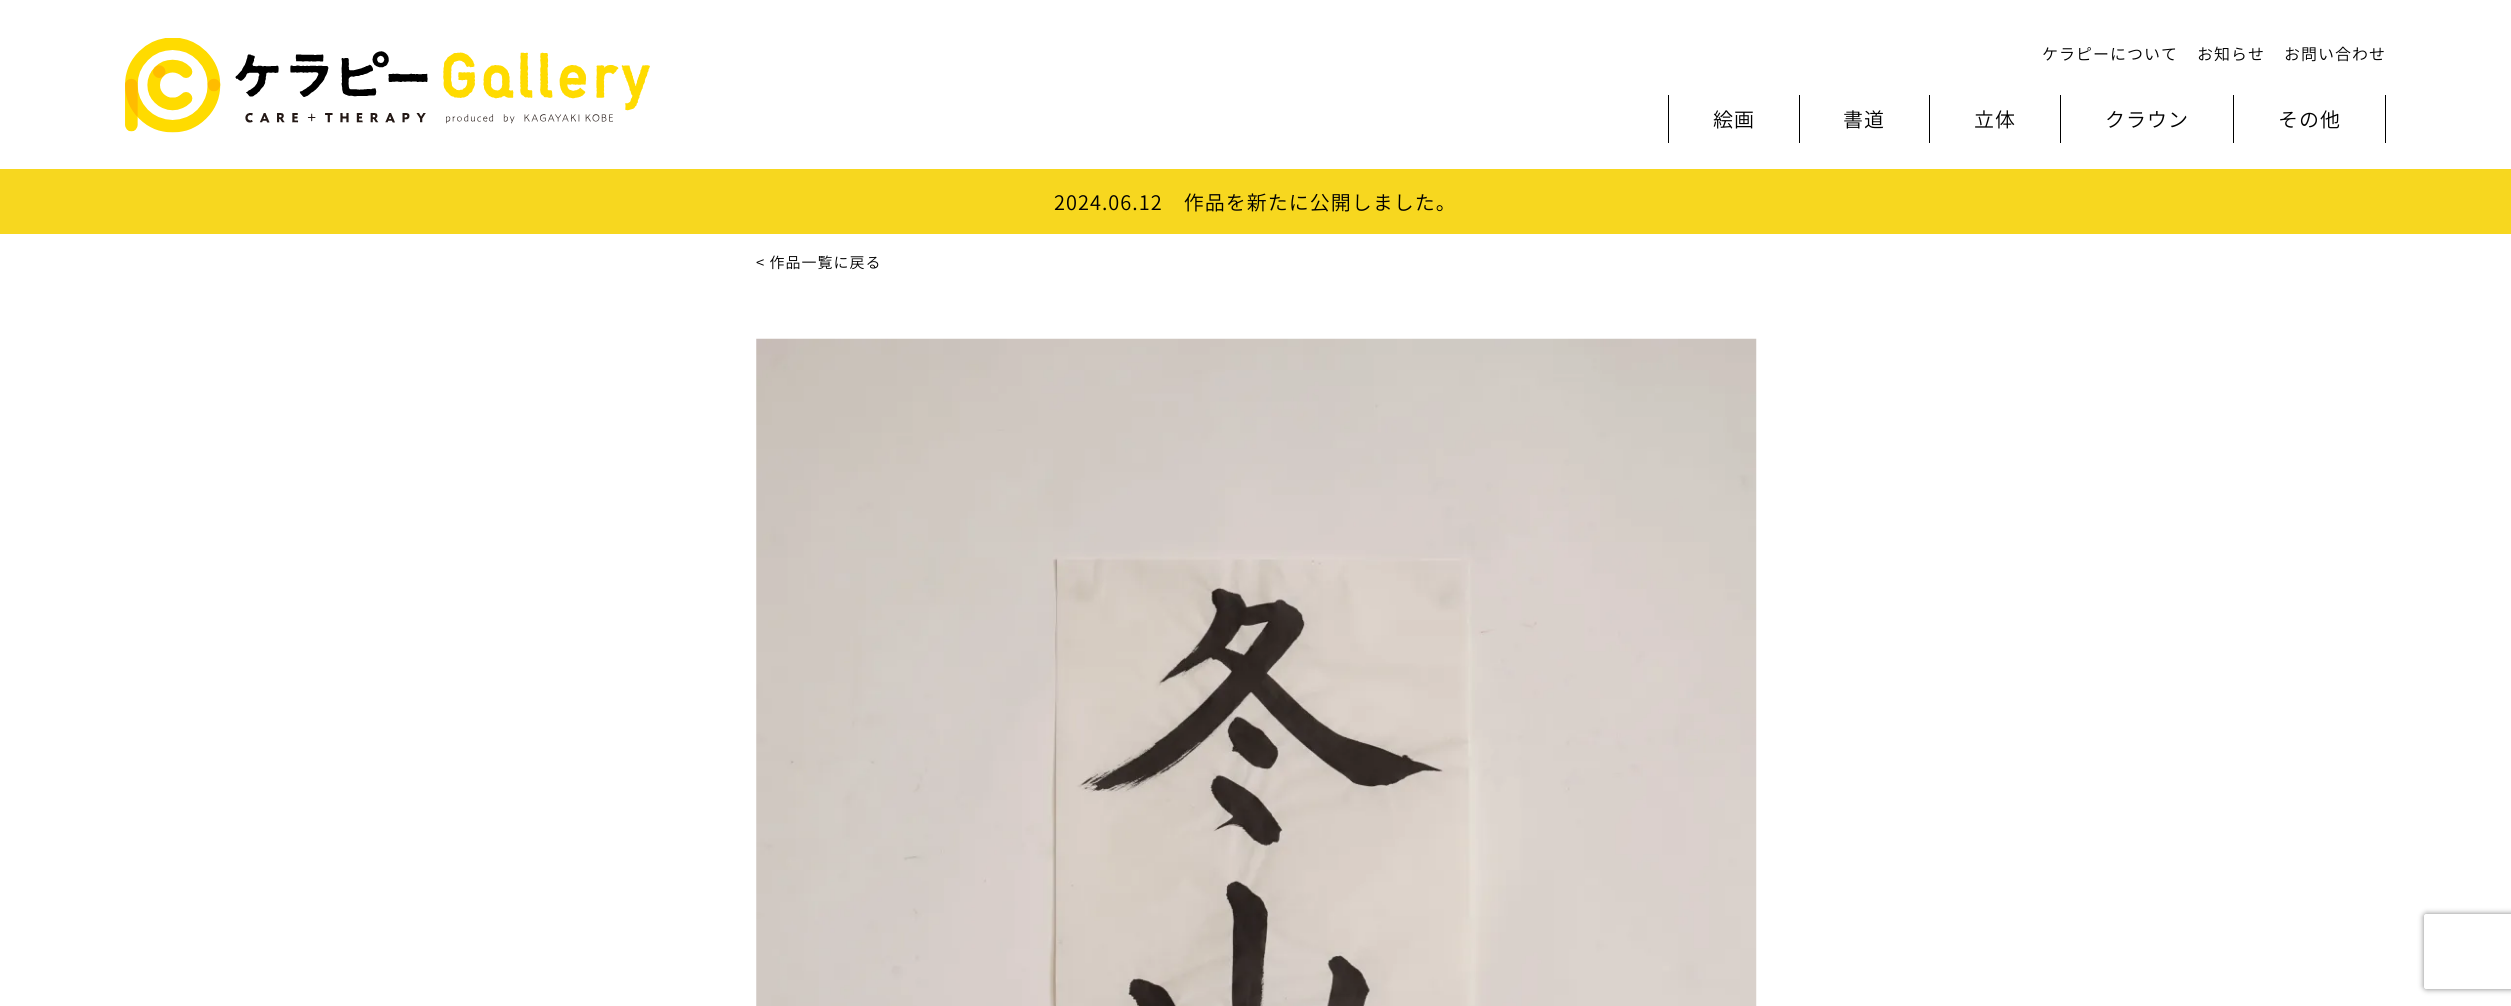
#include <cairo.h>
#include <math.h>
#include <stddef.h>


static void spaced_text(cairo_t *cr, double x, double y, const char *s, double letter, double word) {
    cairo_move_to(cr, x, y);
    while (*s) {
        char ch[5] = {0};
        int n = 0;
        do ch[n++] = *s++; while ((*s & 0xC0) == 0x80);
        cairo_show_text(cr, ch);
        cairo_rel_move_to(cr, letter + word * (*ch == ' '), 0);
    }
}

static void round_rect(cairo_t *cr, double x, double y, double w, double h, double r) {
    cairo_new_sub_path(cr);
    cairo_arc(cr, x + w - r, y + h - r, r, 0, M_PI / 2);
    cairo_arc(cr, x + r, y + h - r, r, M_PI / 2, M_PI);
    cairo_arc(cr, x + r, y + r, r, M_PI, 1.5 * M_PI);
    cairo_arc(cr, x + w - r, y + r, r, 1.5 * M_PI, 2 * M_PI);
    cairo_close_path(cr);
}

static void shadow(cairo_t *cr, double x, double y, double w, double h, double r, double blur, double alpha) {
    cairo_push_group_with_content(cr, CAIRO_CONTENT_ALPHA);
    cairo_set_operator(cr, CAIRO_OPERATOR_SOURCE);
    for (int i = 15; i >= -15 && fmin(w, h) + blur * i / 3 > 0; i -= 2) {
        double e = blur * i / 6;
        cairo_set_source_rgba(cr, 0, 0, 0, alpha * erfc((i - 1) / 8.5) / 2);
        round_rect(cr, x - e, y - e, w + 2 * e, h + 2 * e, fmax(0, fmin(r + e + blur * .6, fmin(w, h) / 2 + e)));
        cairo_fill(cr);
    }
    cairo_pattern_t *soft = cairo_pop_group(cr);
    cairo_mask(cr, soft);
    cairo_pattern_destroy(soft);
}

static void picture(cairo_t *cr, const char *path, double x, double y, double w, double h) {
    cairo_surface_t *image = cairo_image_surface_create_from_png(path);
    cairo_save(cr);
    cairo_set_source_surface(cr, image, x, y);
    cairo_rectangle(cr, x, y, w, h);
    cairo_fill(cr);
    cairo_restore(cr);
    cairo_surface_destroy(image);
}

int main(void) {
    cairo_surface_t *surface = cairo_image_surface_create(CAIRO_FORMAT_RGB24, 2511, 1006);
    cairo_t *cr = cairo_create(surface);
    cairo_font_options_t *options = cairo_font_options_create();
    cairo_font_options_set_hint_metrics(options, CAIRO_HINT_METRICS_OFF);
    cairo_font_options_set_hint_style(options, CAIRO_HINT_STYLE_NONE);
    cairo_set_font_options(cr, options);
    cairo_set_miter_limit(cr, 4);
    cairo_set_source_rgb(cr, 1, 1, 1);
    cairo_paint(cr);
    picture(cr, "img1.png", 125, 38, 525, 95);
    cairo_select_font_face(cr, "Noto Sans JP Light", CAIRO_FONT_SLANT_NORMAL, CAIRO_FONT_WEIGHT_NORMAL);
    cairo_set_font_size(cr, 16);
    cairo_set_source_rgb(cr, 0, 0, 0);
    spaced_text(cr, 2042, 60, "ケラピーについて", 1, 0);
    spaced_text(cr, 2197, 60, "お知らせ", 1, 0);
    spaced_text(cr, 2284, 60, "お問い合わせ", 1, 0);
    cairo_rectangle(cr, 1799, 95, 1, 48);
    cairo_fill(cr);
    cairo_rectangle(cr, 1668, 95, 1, 48);
    cairo_fill(cr);
    cairo_set_font_size(cr, 20);
    spaced_text(cr, 1713, 127, "絵画", 1, 0);
    cairo_rectangle(cr, 1929, 95, 1, 48);
    cairo_fill(cr);
    spaced_text(cr, 1843, 127, "書道", 1, 0);
    cairo_rectangle(cr, 2060, 95, 1, 48);
    cairo_fill(cr);
    spaced_text(cr, 1974, 127, "立体", 1, 0);
    cairo_rectangle(cr, 2233, 95, 1, 48);
    cairo_fill(cr);
    spaced_text(cr, 2105, 127, "クラウン", 1, 0);
    cairo_rectangle(cr, 2385, 95, 1, 48);
    cairo_fill(cr);
    spaced_text(cr, 2278, 127, "その他", 1, 0);
    cairo_set_source_rgb(cr, 0.965, 0.843, 0.122);
    cairo_rectangle(cr, 0, 169, 2511, 65);
    cairo_fill(cr);
    cairo_set_source_rgb(cr, 0, 0, 0);
    spaced_text(cr, 1054, 210, "2024.06.12　作品を新たに公開しました。", 1, 0);
    cairo_set_font_size(cr, 15);
    spaced_text(cr, 756, 268, "< 作品一覧に戻る", 1, 0);
    picture(cr, "img2.png", 756, 338, 1001, 668);
    cairo_save(cr);
    cairo_set_fill_rule(cr, CAIRO_FILL_RULE_EVEN_ODD);
    cairo_new_path(cr);
    cairo_move_to(cr, 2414, 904);
    cairo_line_to(cr, 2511, 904);
    cairo_line_to(cr, 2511, 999);
    cairo_line_to(cr, 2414, 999);
    cairo_close_path(cr);
    cairo_move_to(cr, 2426.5, 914);
    cairo_line_to(cr, 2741.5, 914);
    cairo_curve_to(cr, 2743, 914, 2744, 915, 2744, 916.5);
    cairo_line_to(cr, 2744, 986.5);
    cairo_curve_to(cr, 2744, 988, 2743, 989, 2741.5, 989);
    cairo_line_to(cr, 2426.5, 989);
    cairo_curve_to(cr, 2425, 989, 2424, 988, 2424, 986.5);
    cairo_line_to(cr, 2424, 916.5);
    cairo_curve_to(cr, 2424, 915, 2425, 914, 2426.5, 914);
    cairo_close_path(cr);
    cairo_clip(cr);
    cairo_set_source_rgb(cr, 0.502, 0.502, 0.502);
    shadow(cr, 2424, 914, 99, 75, 2.5, 3, 1);
    cairo_restore(cr);
    cairo_surface_write_to_png(surface, "page.png");
    cairo_font_options_destroy(options);
    cairo_destroy(cr);
    cairo_surface_destroy(surface);
    return 0;
}
